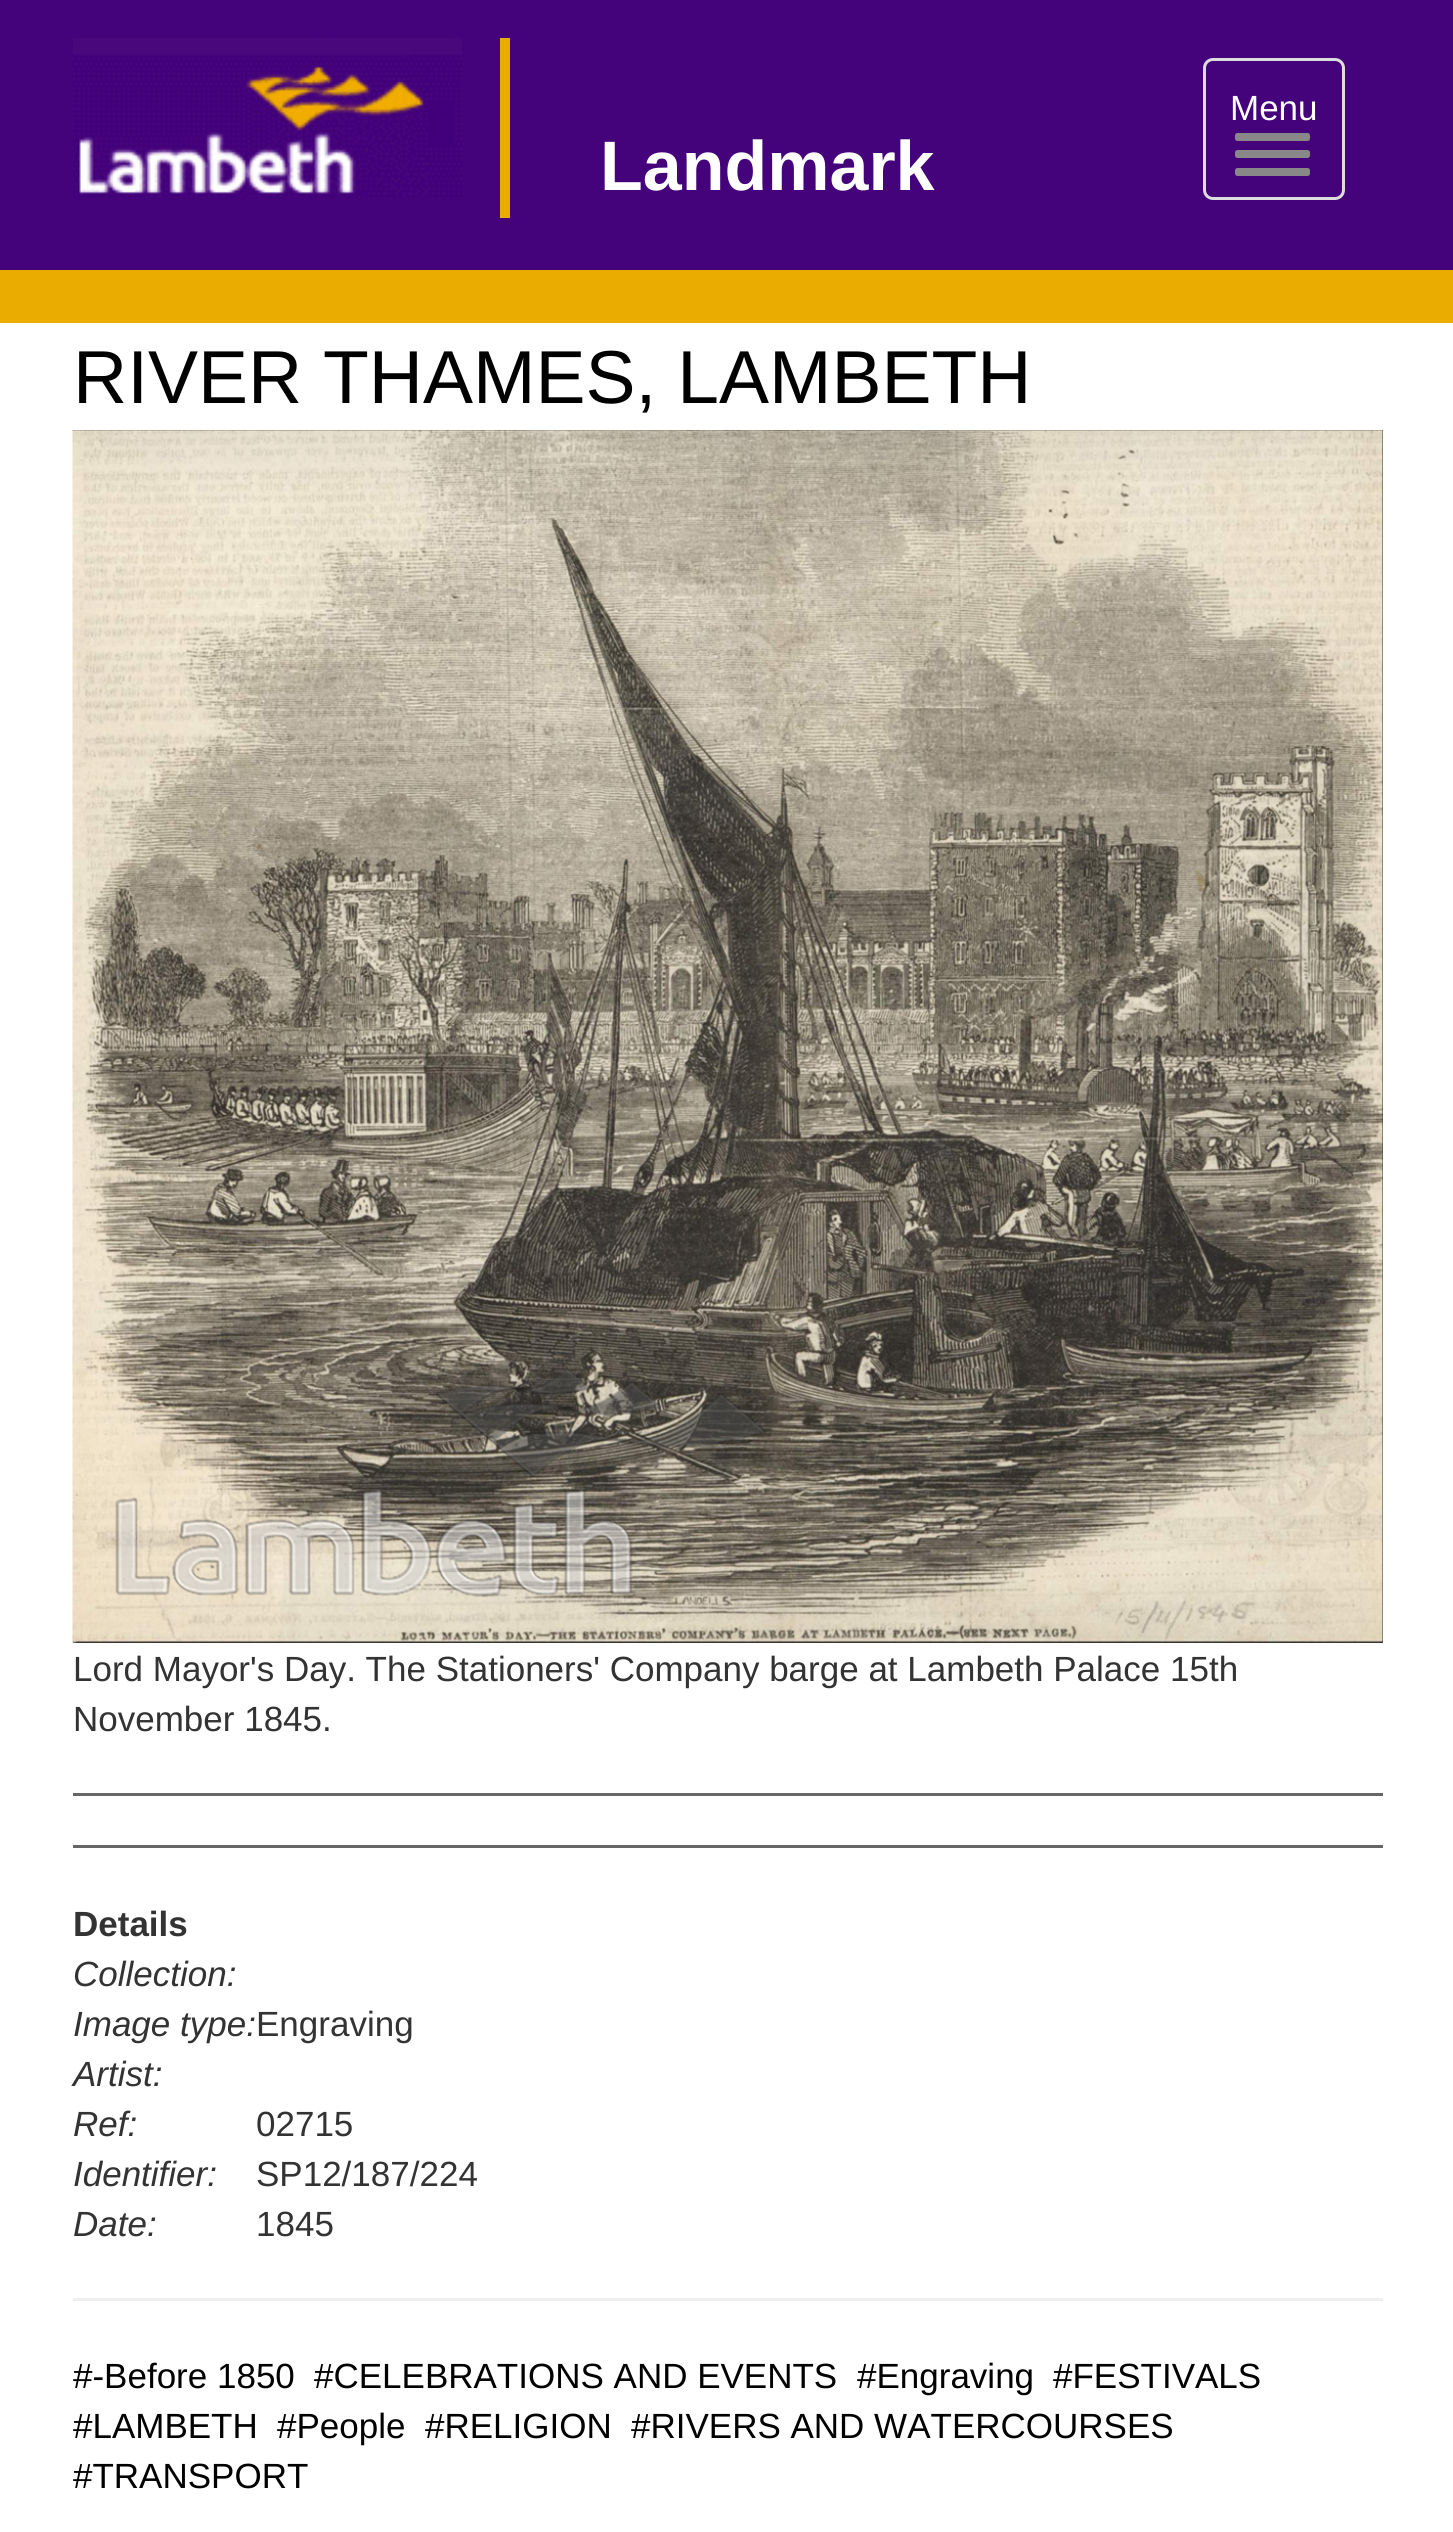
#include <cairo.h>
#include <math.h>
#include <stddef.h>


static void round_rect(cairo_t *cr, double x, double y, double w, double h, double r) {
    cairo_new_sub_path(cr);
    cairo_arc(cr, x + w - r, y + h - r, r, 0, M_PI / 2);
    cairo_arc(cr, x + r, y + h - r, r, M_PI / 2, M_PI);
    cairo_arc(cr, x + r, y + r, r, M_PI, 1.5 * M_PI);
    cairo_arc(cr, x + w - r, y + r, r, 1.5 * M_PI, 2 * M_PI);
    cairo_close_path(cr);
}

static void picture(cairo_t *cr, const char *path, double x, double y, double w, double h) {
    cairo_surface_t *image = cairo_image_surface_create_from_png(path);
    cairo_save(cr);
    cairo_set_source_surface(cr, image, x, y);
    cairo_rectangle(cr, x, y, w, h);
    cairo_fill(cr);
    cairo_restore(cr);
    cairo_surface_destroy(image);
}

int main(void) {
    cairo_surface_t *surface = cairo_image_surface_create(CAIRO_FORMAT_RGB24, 1453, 2532);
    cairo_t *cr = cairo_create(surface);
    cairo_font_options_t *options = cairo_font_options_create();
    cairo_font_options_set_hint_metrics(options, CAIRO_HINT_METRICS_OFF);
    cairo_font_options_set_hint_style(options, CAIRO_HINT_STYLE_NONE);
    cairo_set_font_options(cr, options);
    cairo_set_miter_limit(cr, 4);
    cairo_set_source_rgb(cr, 1, 1, 1);
    cairo_paint(cr);
    cairo_set_source_rgb(cr, 0.267, 0.008, 0.482);
    cairo_rectangle(cr, 0, 0, 1453, 270);
    cairo_fill(cr);
    round_rect(cr, 1204.5, 59.5, 139, 139, 8.5);
    cairo_set_source_rgb(cr, 0.867, 0.867, 0.867);
    cairo_set_line_width(cr, 3);
    cairo_stroke(cr);
    cairo_select_font_face(cr, "Liberation Sans", CAIRO_FONT_SLANT_NORMAL, CAIRO_FONT_WEIGHT_NORMAL);
    cairo_set_font_size(cr, 35);
    cairo_set_source_rgb(cr, 1, 1, 1);
    cairo_move_to(cr, 1230, 120);
    cairo_show_text(cr, "Menu");
    cairo_set_source_rgb(cr, 0.533, 0.533, 0.533);
    round_rect(cr, 1235, 133, 75, 8, 2.5);
    cairo_fill(cr);
    round_rect(cr, 1235, 150, 75, 8, 2.5);
    cairo_fill(cr);
    round_rect(cr, 1235, 168, 75, 8, 2.5);
    cairo_fill(cr);
    picture(cr, "img1.png", 73, 38, 389, 159);
    cairo_set_source_rgb(cr, 0.918, 0.675, 0);
    cairo_rectangle(cr, 500, 38, 10, 180);
    cairo_fill(cr);
    cairo_select_font_face(cr, "Liberation Sans", CAIRO_FONT_SLANT_NORMAL, CAIRO_FONT_WEIGHT_BOLD);
    cairo_set_font_size(cr, 70);
    cairo_set_source_rgb(cr, 1, 1, 1);
    cairo_move_to(cr, 600, 190);
    cairo_show_text(cr, "Landmark");
    cairo_set_source_rgb(cr, 0.918, 0.675, 0);
    cairo_rectangle(cr, 0, 270, 1453, 53);
    cairo_fill(cr);
    cairo_select_font_face(cr, "Liberation Sans", CAIRO_FONT_SLANT_NORMAL, CAIRO_FONT_WEIGHT_NORMAL);
    cairo_set_font_size(cr, 75);
    cairo_set_source_rgb(cr, 0, 0, 0);
    cairo_move_to(cr, 73, 403);
    cairo_show_text(cr, "RIVER THAMES, LAMBETH");
    cairo_set_source_rgb(cr, 0.2, 0.2, 0.2);
    cairo_rectangle(cr, 73, 430, 1310, 1213);
    cairo_fill(cr);
    picture(cr, "img2.png", 72, 430, 1311, 1213);
    cairo_set_font_size(cr, 35);
    cairo_move_to(cr, 73, 1681);
    cairo_show_text(cr, "Lord Mayor's Day. The Stationers' Company barge at Lambeth Palace 15th");
    cairo_move_to(cr, 73, 1731);
    cairo_show_text(cr, "November 1845.");
    cairo_set_source_rgb(cr, 0.4, 0.4, 0.4);
    cairo_rectangle(cr, 73, 1793, 1310, 3);
    cairo_fill(cr);
    cairo_rectangle(cr, 73, 1845, 1310, 3);
    cairo_fill(cr);
    cairo_select_font_face(cr, "Liberation Sans", CAIRO_FONT_SLANT_NORMAL, CAIRO_FONT_WEIGHT_BOLD);
    cairo_set_source_rgb(cr, 0.2, 0.2, 0.2);
    cairo_move_to(cr, 73, 1936);
    cairo_show_text(cr, "Details");
    cairo_select_font_face(cr, "Liberation Sans", CAIRO_FONT_SLANT_ITALIC, CAIRO_FONT_WEIGHT_NORMAL);
    cairo_move_to(cr, 73, 1986);
    cairo_show_text(cr, "Collection:");
    cairo_move_to(cr, 73, 2036);
    cairo_show_text(cr, "Image type:");
    cairo_select_font_face(cr, "Liberation Sans", CAIRO_FONT_SLANT_NORMAL, CAIRO_FONT_WEIGHT_NORMAL);
    cairo_move_to(cr, 256, 2036);
    cairo_show_text(cr, "Engraving");
    cairo_select_font_face(cr, "Liberation Sans", CAIRO_FONT_SLANT_ITALIC, CAIRO_FONT_WEIGHT_NORMAL);
    cairo_move_to(cr, 73, 2086);
    cairo_show_text(cr, "Artist:");
    cairo_move_to(cr, 73, 2136);
    cairo_show_text(cr, "Ref:");
    cairo_select_font_face(cr, "Liberation Sans", CAIRO_FONT_SLANT_NORMAL, CAIRO_FONT_WEIGHT_NORMAL);
    cairo_move_to(cr, 256, 2136);
    cairo_show_text(cr, "02715");
    cairo_select_font_face(cr, "Liberation Sans", CAIRO_FONT_SLANT_ITALIC, CAIRO_FONT_WEIGHT_NORMAL);
    cairo_move_to(cr, 73, 2186);
    cairo_show_text(cr, "Identifier:");
    cairo_select_font_face(cr, "Liberation Sans", CAIRO_FONT_SLANT_NORMAL, CAIRO_FONT_WEIGHT_NORMAL);
    cairo_move_to(cr, 256, 2186);
    cairo_show_text(cr, "SP12/187/224");
    cairo_select_font_face(cr, "Liberation Sans", CAIRO_FONT_SLANT_ITALIC, CAIRO_FONT_WEIGHT_NORMAL);
    cairo_move_to(cr, 73, 2236);
    cairo_show_text(cr, "Date:");
    cairo_select_font_face(cr, "Liberation Sans", CAIRO_FONT_SLANT_NORMAL, CAIRO_FONT_WEIGHT_NORMAL);
    cairo_move_to(cr, 256, 2236);
    cairo_show_text(cr, "1845");
    cairo_set_source_rgb(cr, 0.933, 0.933, 0.933);
    cairo_rectangle(cr, 73, 2298, 1310, 3);
    cairo_fill(cr);
    cairo_set_source_rgb(cr, 0, 0, 0);
    cairo_move_to(cr, 73, 2388);
    cairo_show_text(cr, "#-Before 1850");
    cairo_move_to(cr, 314, 2388);
    cairo_show_text(cr, "#CELEBRATIONS AND EVENTS");
    cairo_move_to(cr, 857, 2388);
    cairo_show_text(cr, "#Engraving");
    cairo_move_to(cr, 1053, 2388);
    cairo_show_text(cr, "#FESTIVALS");
    cairo_move_to(cr, 73, 2438);
    cairo_show_text(cr, "#LAMBETH");
    cairo_move_to(cr, 277, 2438);
    cairo_show_text(cr, "#People");
    cairo_move_to(cr, 425, 2438);
    cairo_show_text(cr, "#RELIGION");
    cairo_move_to(cr, 631, 2438);
    cairo_show_text(cr, "#RIVERS AND WATERCOURSES");
    cairo_move_to(cr, 73, 2488);
    cairo_show_text(cr, "#TRANSPORT");
    cairo_surface_write_to_png(surface, "page.png");
    cairo_font_options_destroy(options);
    cairo_destroy(cr);
    cairo_surface_destroy(surface);
    return 0;
}
